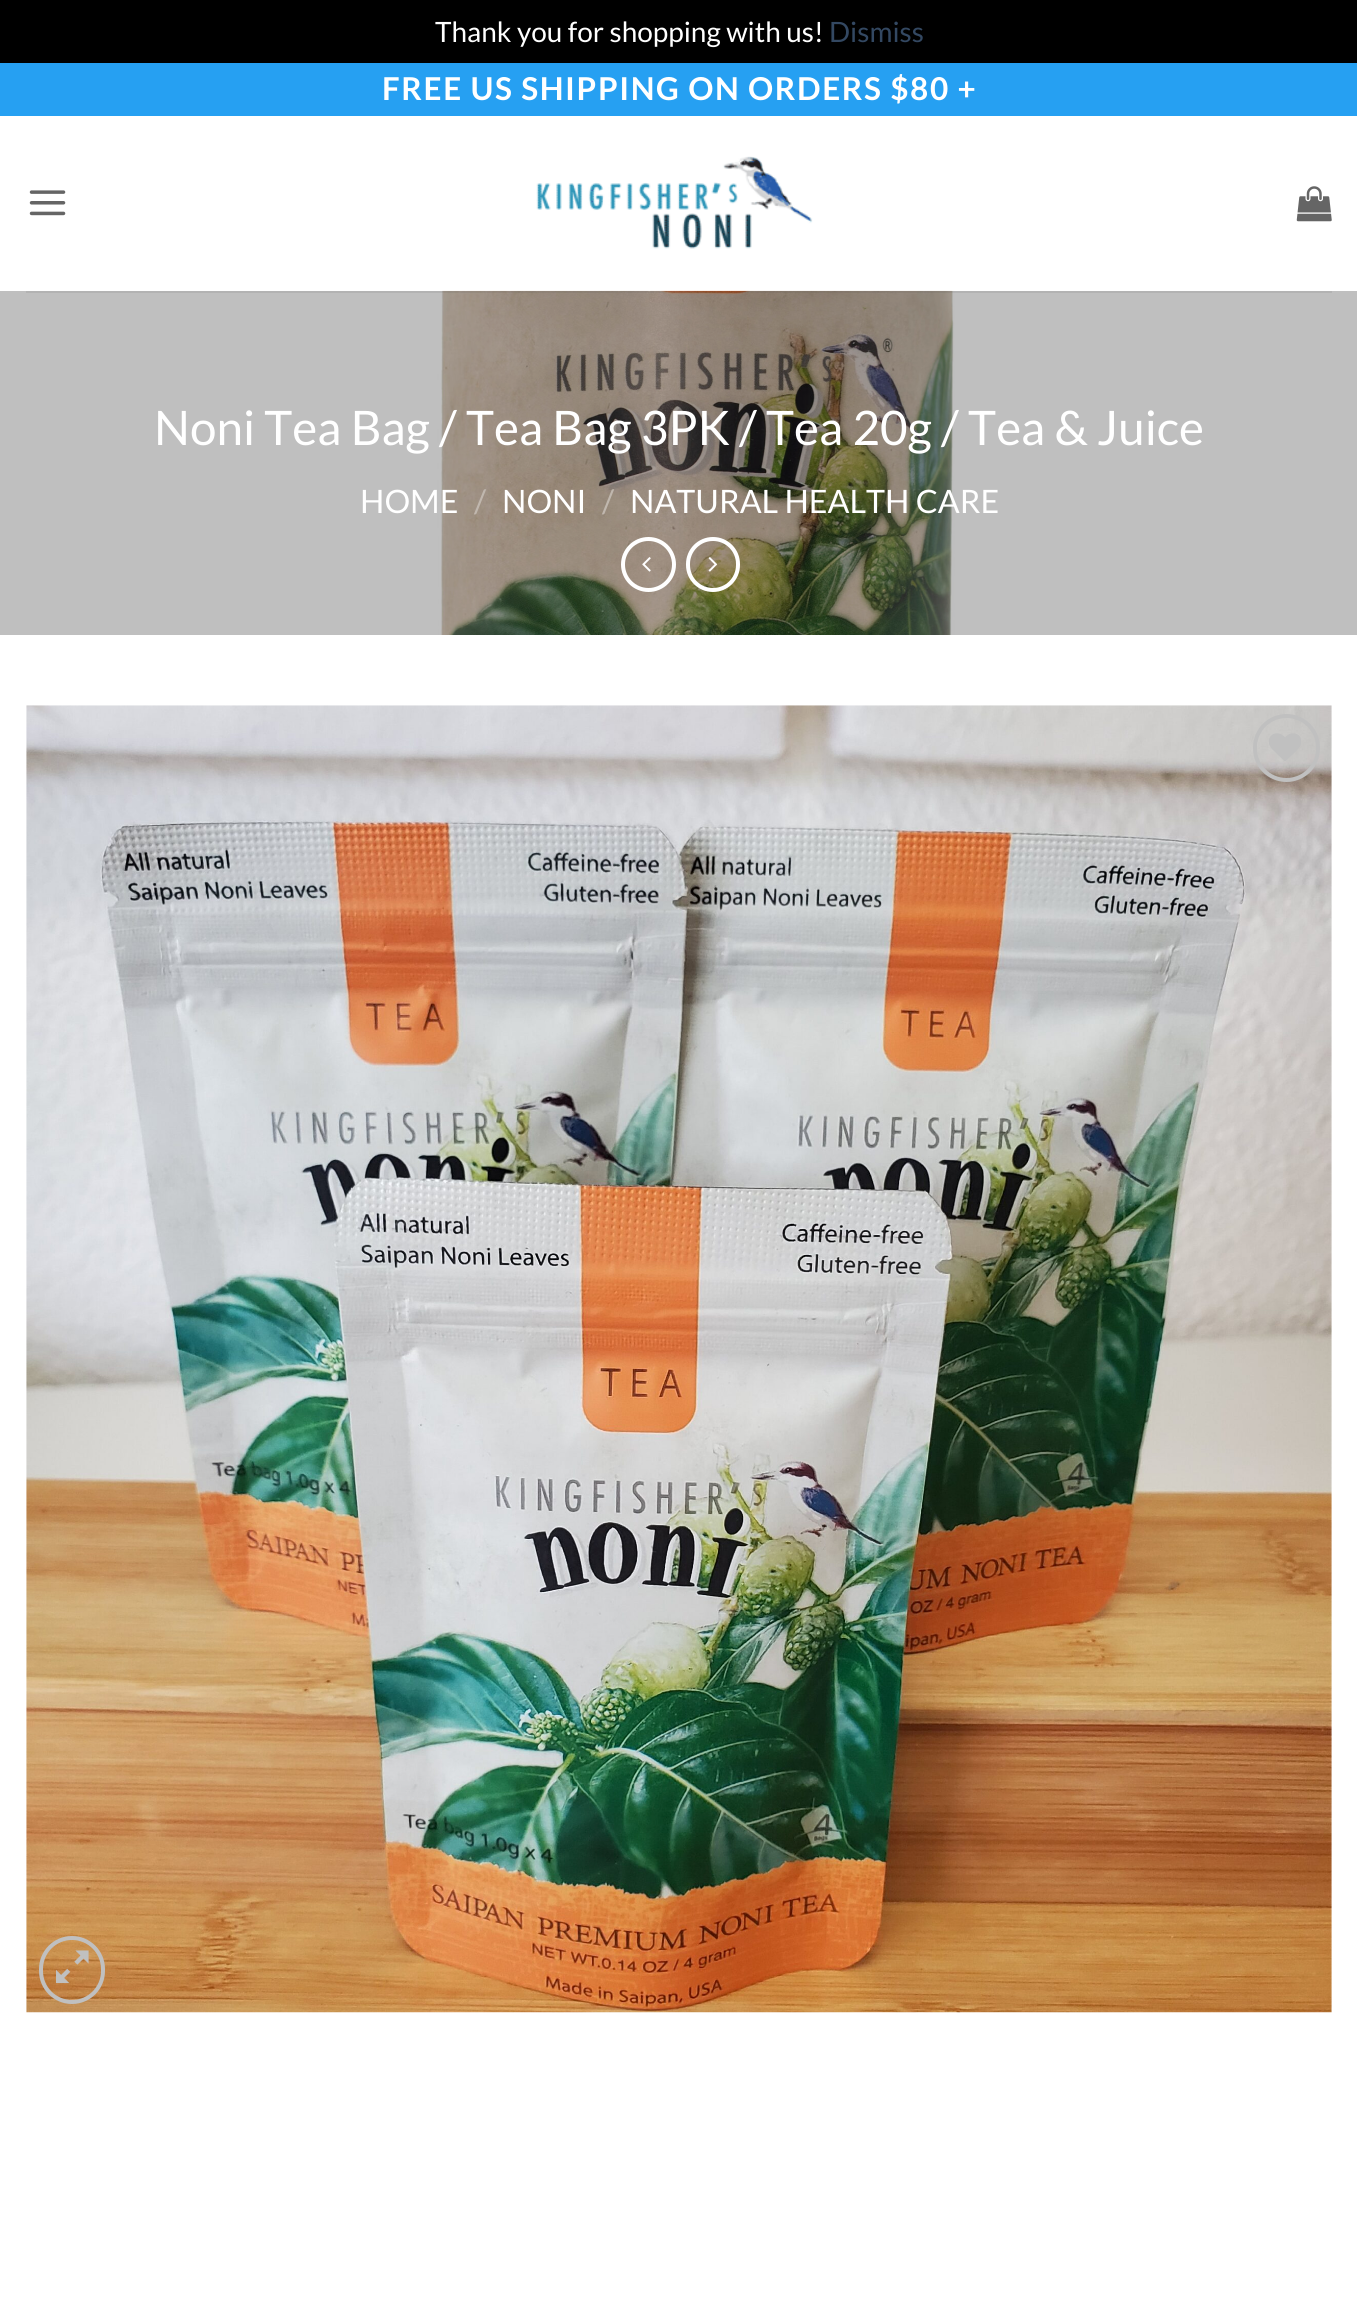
#include <cairo.h>
#include <math.h>
#include <stddef.h>


static void spaced_text(cairo_t *cr, double x, double y, const char *s, double letter, double word) {
    cairo_move_to(cr, x, y);
    while (*s) {
        char ch[5] = {0};
        int n = 0;
        do ch[n++] = *s++; while ((*s & 0xC0) == 0x80);
        cairo_show_text(cr, ch);
        cairo_rel_move_to(cr, letter + word * (*ch == ' '), 0);
    }
}

static void round_rect(cairo_t *cr, double x, double y, double w, double h, double r) {
    cairo_new_sub_path(cr);
    cairo_arc(cr, x + w - r, y + h - r, r, 0, M_PI / 2);
    cairo_arc(cr, x + r, y + h - r, r, M_PI / 2, M_PI);
    cairo_arc(cr, x + r, y + r, r, M_PI, 1.5 * M_PI);
    cairo_arc(cr, x + w - r, y + r, r, 1.5 * M_PI, 2 * M_PI);
    cairo_close_path(cr);
}

static void picture(cairo_t *cr, const char *path, double x, double y, double w, double h) {
    cairo_surface_t *image = cairo_image_surface_create_from_png(path);
    cairo_save(cr);
    cairo_set_source_surface(cr, image, x, y);
    cairo_rectangle(cr, x, y, w, h);
    cairo_fill(cr);
    cairo_restore(cr);
    cairo_surface_destroy(image);
}

int main(void) {
    cairo_surface_t *surface = cairo_image_surface_create(CAIRO_FORMAT_RGB24, 1357, 2300);
    cairo_t *cr = cairo_create(surface);
    cairo_font_options_t *options = cairo_font_options_create();
    cairo_font_options_set_hint_metrics(options, CAIRO_HINT_METRICS_OFF);
    cairo_font_options_set_hint_style(options, CAIRO_HINT_STYLE_NONE);
    cairo_set_font_options(cr, options);
    cairo_set_miter_limit(cr, 4);
    cairo_set_source_rgb(cr, 0, 0, 0);
    cairo_paint(cr);
    cairo_select_font_face(cr, "Lato", CAIRO_FONT_SLANT_NORMAL, CAIRO_FONT_WEIGHT_NORMAL);
    cairo_set_font_size(cr, 28);
    cairo_set_source_rgb(cr, 1, 1, 1);
    cairo_move_to(cr, 435, 42);
    cairo_show_text(cr, "Thank you for shopping with us!");
    cairo_set_source_rgb(cr, 0.2, 0.282, 0.384);
    cairo_move_to(cr, 829, 42);
    cairo_show_text(cr, "Dismiss");
    cairo_set_source_rgb(cr, 1, 1, 1);
    cairo_rectangle(cr, 0, 116, 1357, 174);
    cairo_fill(cr);
    cairo_set_source_rgb(cr, 0.149, 0.627, 0.949);
    cairo_rectangle(cr, 0, 63, 1357, 53);
    cairo_fill(cr);
    cairo_select_font_face(cr, "Lato", CAIRO_FONT_SLANT_NORMAL, CAIRO_FONT_WEIGHT_BOLD);
    cairo_set_font_size(cr, 31.5);
    cairo_set_source_rgb(cr, 1, 1, 1);
    spaced_text(cr, 382, 100, "FREE US SHIPPING ON ORDERS $80 +", 1.6, 0);
    picture(cr, "img1.png", 29, 190, 37, 26);
    picture(cr, "img2.png", 536, 156, 277, 93);
    picture(cr, "img3.png", 1296, 186, 36, 36);
    picture(cr, "img4.png", 0, 290, 1357, 345);
    cairo_set_source_rgba(cr, 0.29, 0.29, 0.29, 0.1);
    cairo_rectangle(cr, 26, 291, 1306, 2);
    cairo_fill(cr);
    cairo_set_source_rgba(cr, 1, 1, 1, 0.9);
    cairo_rectangle(cr, 441, 290, 512, 1);
    cairo_fill(cr);
    cairo_select_font_face(cr, "Lato", CAIRO_FONT_SLANT_NORMAL, CAIRO_FONT_WEIGHT_NORMAL);
    cairo_set_font_size(cr, 47.6);
    cairo_set_source_rgb(cr, 1, 1, 1);
    cairo_move_to(cr, 154, 445);
    cairo_show_text(cr, "Noni Tea Bag / Tea Bag 3PK / Tea 20g / Tea & Juice");
    cairo_set_font_size(cr, 32.25);
    cairo_move_to(cr, 360, 513);
    cairo_show_text(cr, "HOME");
    cairo_set_source_rgb(cr, 0.753, 0.718, 0.682);
    cairo_move_to(cr, 474, 513);
    cairo_show_text(cr, "/");
    cairo_set_source_rgb(cr, 1, 1, 1);
    cairo_move_to(cr, 502, 513);
    cairo_show_text(cr, "NONI");
    cairo_set_source_rgb(cr, 0.753, 0.718, 0.682);
    cairo_move_to(cr, 602, 513);
    cairo_show_text(cr, "/");
    cairo_set_source_rgb(cr, 1, 1, 1);
    cairo_move_to(cr, 630, 513);
    cairo_show_text(cr, "NATURAL HEALTH CARE");
    cairo_new_path(cr);
    cairo_arc(cr, 648.5, 564.5, 25.5, 0, 2 * M_PI);
    cairo_set_line_width(cr, 4);
    cairo_stroke(cr);
    picture(cr, "img5.png", 642, 557, 9, 15);
    round_rect(cr, 688, 539, 50, 51, 25);
    cairo_stroke(cr);
    picture(cr, "img6.png", 708, 557, 10, 15);
    cairo_rectangle(cr, 0, 635, 1357, 1665);
    cairo_fill(cr);
    picture(cr, "img7.png", 26, 705, 1306, 1308);
    round_rect(cr, 1255, 716, 63, 64, 31.5);
    cairo_set_source_rgb(cr, 0.753, 0.753, 0.753);
    cairo_stroke(cr);
    picture(cr, "img8.png", 1269, 733, 32, 28);
    round_rect(cr, 41, 1938, 62, 64, 31);
    cairo_stroke(cr);
    picture(cr, "img9.png", 56, 1950, 33, 34);
    cairo_surface_write_to_png(surface, "page.png");
    cairo_font_options_destroy(options);
    cairo_destroy(cr);
    cairo_surface_destroy(surface);
    return 0;
}
